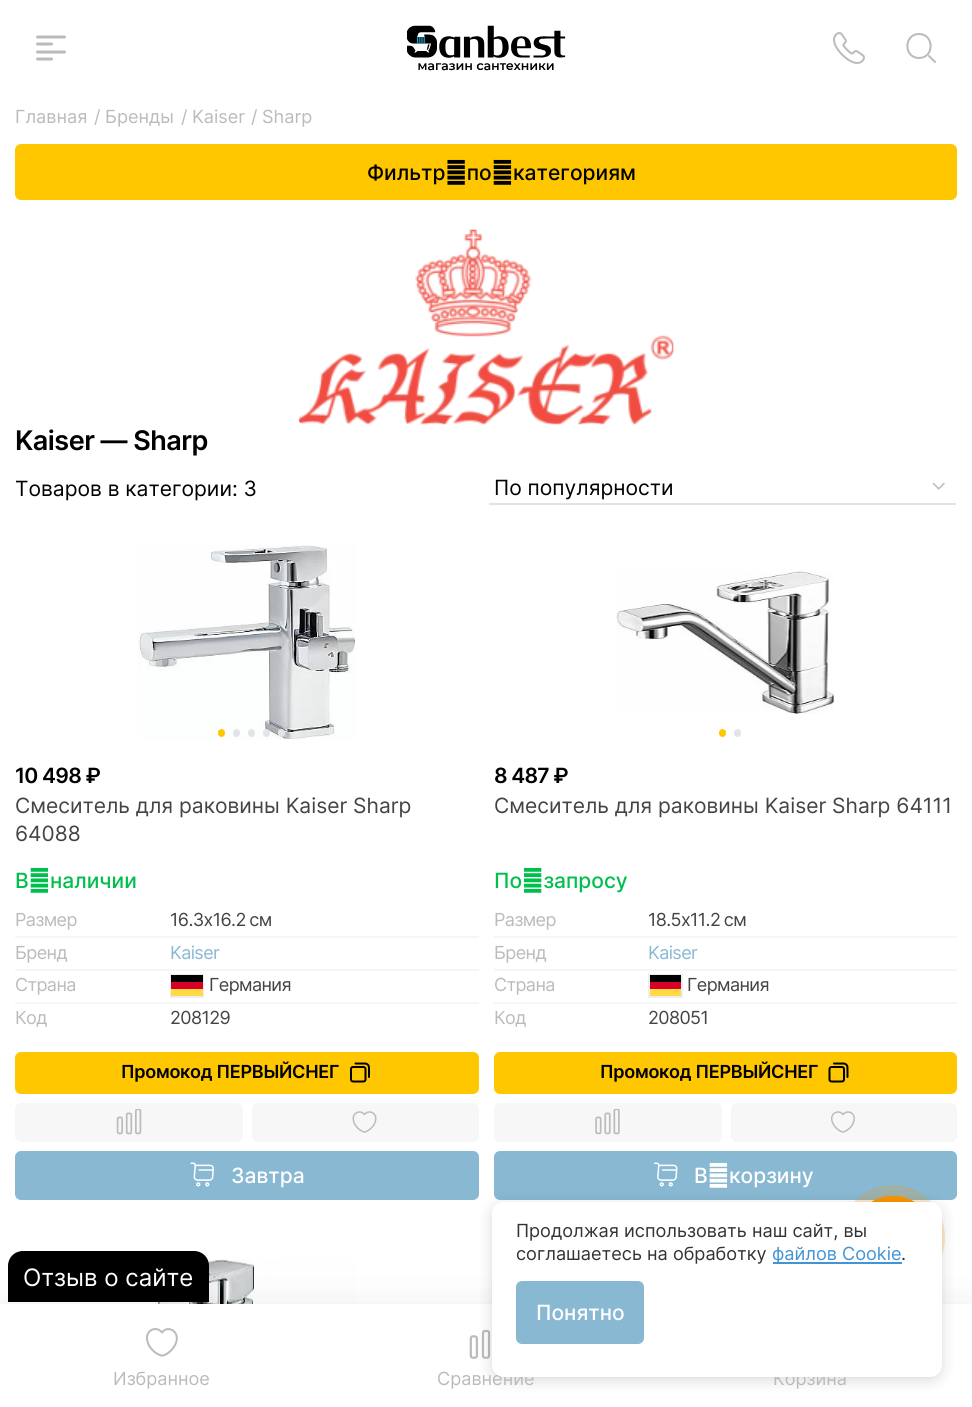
#include <cairo.h>
#include <math.h>
#include <stddef.h>


static void spaced_text(cairo_t *cr, double x, double y, const char *s, double letter, double word) {
    cairo_move_to(cr, x, y);
    while (*s) {
        char ch[5] = {0};
        int n = 0;
        do ch[n++] = *s++; while ((*s & 0xC0) == 0x80);
        cairo_show_text(cr, ch);
        cairo_rel_move_to(cr, letter + word * (*ch == ' '), 0);
    }
}

static void round_rect(cairo_t *cr, double x, double y, double w, double h, double r) {
    cairo_new_sub_path(cr);
    cairo_arc(cr, x + w - r, y + h - r, r, 0, M_PI / 2);
    cairo_arc(cr, x + r, y + h - r, r, M_PI / 2, M_PI);
    cairo_arc(cr, x + r, y + r, r, M_PI, 1.5 * M_PI);
    cairo_arc(cr, x + w - r, y + r, r, 1.5 * M_PI, 2 * M_PI);
    cairo_close_path(cr);
}

static void shadow(cairo_t *cr, double x, double y, double w, double h, double r, double blur, double alpha) {
    cairo_push_group_with_content(cr, CAIRO_CONTENT_ALPHA);
    cairo_set_operator(cr, CAIRO_OPERATOR_SOURCE);
    for (int i = 15; i >= -15 && fmin(w, h) + blur * i / 3 > 0; i -= 2) {
        double e = blur * i / 6;
        cairo_set_source_rgba(cr, 0, 0, 0, alpha * erfc((i - 1) / 8.5) / 2);
        round_rect(cr, x - e, y - e, w + 2 * e, h + 2 * e, fmax(0, fmin(r + e + blur * .6, fmin(w, h) / 2 + e)));
        cairo_fill(cr);
    }
    cairo_pattern_t *soft = cairo_pop_group(cr);
    cairo_mask(cr, soft);
    cairo_pattern_destroy(soft);
}

static void picture(cairo_t *cr, const char *path, double x, double y, double w, double h) {
    cairo_surface_t *image = cairo_image_surface_create_from_png(path);
    cairo_save(cr);
    cairo_set_source_surface(cr, image, x, y);
    cairo_rectangle(cr, x, y, w, h);
    cairo_fill(cr);
    cairo_restore(cr);
    cairo_surface_destroy(image);
}

int main(void) {
    cairo_surface_t *surface = cairo_image_surface_create(CAIRO_FORMAT_RGB24, 972, 1407);
    cairo_t *cr = cairo_create(surface);
    cairo_font_options_t *options = cairo_font_options_create();
    cairo_font_options_set_hint_metrics(options, CAIRO_HINT_METRICS_OFF);
    cairo_font_options_set_hint_style(options, CAIRO_HINT_STYLE_NONE);
    cairo_set_font_options(cr, options);
    cairo_set_miter_limit(cr, 4);
    cairo_set_source_rgb(cr, 1, 1, 1);
    cairo_paint(cr);
    cairo_new_path(cr);
    cairo_move_to(cr, 37.5, 37);
    cairo_line_to(cr, 64.5, 37);
    cairo_move_to(cr, 37.5, 44);
    cairo_line_to(cr, 51.5, 44);
    cairo_move_to(cr, 37.5, 52);
    cairo_line_to(cr, 64.5, 52);
    cairo_move_to(cr, 37.5, 59);
    cairo_line_to(cr, 51.5, 59);
    cairo_set_source_rgb(cr, 0.733, 0.733, 0.733);
    cairo_set_line_width(cr, 3);
    cairo_set_line_cap(cr, CAIRO_LINE_CAP_ROUND);
    cairo_set_line_join(cr, CAIRO_LINE_JOIN_ROUND);
    cairo_stroke(cr);
    picture(cr, "img1.png", 407, 25, 159, 46);
    picture(cr, "img2.png", 833, 32, 32, 32);
    cairo_new_path(cr);
    cairo_move_to(cr, 919, 58);
    cairo_curve_to(cr, 934.5, 58, 934.5, 34, 919, 34);
    cairo_curve_to(cr, 903.5, 34, 903.5, 58, 919, 58);
    cairo_move_to(cr, 935, 62);
    cairo_line_to(cr, 929, 56);
    cairo_set_line_width(cr, 2);
    cairo_stroke(cr);
    cairo_select_font_face(cr, "Inter", CAIRO_FONT_SLANT_ITALIC, CAIRO_FONT_WEIGHT_NORMAL);
    cairo_set_font_size(cr, 18.1);
    cairo_move_to(cr, 15, 123);
    cairo_show_text(cr, "Главная");
    cairo_move_to(cr, 94, 123);
    cairo_show_text(cr, "/");
    cairo_move_to(cr, 105, 123);
    cairo_show_text(cr, "Бренды");
    cairo_move_to(cr, 181, 123);
    cairo_show_text(cr, "/");
    cairo_move_to(cr, 192, 123);
    cairo_show_text(cr, "Kaiser");
    cairo_move_to(cr, 251, 123);
    cairo_show_text(cr, "/");
    cairo_move_to(cr, 262, 123);
    cairo_show_text(cr, "Sharp");
    cairo_set_source_rgb(cr, 1, 0.78, 0);
    round_rect(cr, 15, 144, 942, 56, 6);
    cairo_fill(cr);
    cairo_select_font_face(cr, "Inter Medium", CAIRO_FONT_SLANT_ITALIC, CAIRO_FONT_WEIGHT_NORMAL);
    cairo_set_font_size(cr, 21);
    cairo_set_source_rgb(cr, 0, 0, 0);
    cairo_move_to(cr, 367, 180);
    cairo_show_text(cr, "Фильтр по категориям");
    picture(cr, "img3.png", 298, 229, 376, 196);
    cairo_select_font_face(cr, "Inter SemiBold", CAIRO_FONT_SLANT_ITALIC, CAIRO_FONT_WEIGHT_NORMAL);
    cairo_set_font_size(cr, 27);
    spaced_text(cr, 15, 450, "Kaiser — Sharp", -0.5, 0);
    cairo_select_font_face(cr, "Inter", CAIRO_FONT_SLANT_ITALIC, CAIRO_FONT_WEIGHT_NORMAL);
    cairo_set_font_size(cr, 21);
    cairo_move_to(cr, 15, 496);
    cairo_show_text(cr, "Товаров в категории: 3");
    cairo_set_source_rgb(cr, 0.882, 0.89, 0.898);
    cairo_rectangle(cr, 489, 503, 467, 2);
    cairo_fill(cr);
    cairo_set_source_rgb(cr, 0, 0, 0);
    cairo_move_to(cr, 494, 495);
    cairo_show_text(cr, "По популярности");
    picture(cr, "img4.png", 932, 482, 13, 8);
    picture(cr, "img5.png", 138, 545, 218, 195);
    cairo_set_source_rgb(cr, 1, 0.78, 0);
    round_rect(cr, 218, 729, 7, 8, 3.5);
    cairo_fill(cr);
    cairo_set_source_rgb(cr, 0.886, 0.894, 0.91);
    round_rect(cr, 233, 729, 7, 8, 3.5);
    cairo_fill(cr);
    round_rect(cr, 248, 729, 7, 8, 3.5);
    cairo_fill(cr);
    round_rect(cr, 263, 729, 7, 8, 3.5);
    cairo_fill(cr);
    round_rect(cr, 278, 729, 7, 8, 3.5);
    cairo_fill(cr);
    cairo_select_font_face(cr, "Inter SemiBold", CAIRO_FONT_SLANT_ITALIC, CAIRO_FONT_WEIGHT_NORMAL);
    cairo_set_source_rgb(cr, 0, 0, 0);
    spaced_text(cr, 15, 783, "10 498 ₽", -0.75, 0);
    cairo_select_font_face(cr, "Inter", CAIRO_FONT_SLANT_ITALIC, CAIRO_FONT_WEIGHT_NORMAL);
    cairo_set_source_rgb(cr, 0.267, 0.267, 0.267);
    cairo_move_to(cr, 15, 813);
    cairo_show_text(cr, "Смеситель для раковины Kaiser Sharp");
    cairo_move_to(cr, 15, 841);
    cairo_show_text(cr, "64088");
    cairo_select_font_face(cr, "Inter Medium", CAIRO_FONT_SLANT_ITALIC, CAIRO_FONT_WEIGHT_NORMAL);
    cairo_set_source_rgb(cr, 0.004, 0.749, 0.302);
    cairo_move_to(cr, 15, 888);
    cairo_show_text(cr, "В наличии");
    cairo_set_source_rgb(cr, 0.961, 0.961, 0.961);
    cairo_rectangle(cr, 15, 936, 464, 2);
    cairo_fill(cr);
    cairo_select_font_face(cr, "Inter", CAIRO_FONT_SLANT_ITALIC, CAIRO_FONT_WEIGHT_NORMAL);
    cairo_set_font_size(cr, 18);
    cairo_set_source_rgb(cr, 0.733, 0.733, 0.733);
    spaced_text(cr, 15, 926, "Размер", -0.6, 0);
    cairo_set_source_rgb(cr, 0.267, 0.267, 0.267);
    spaced_text(cr, 170, 926, "16.3x16.2 см", -0.6, -1);
    cairo_set_source_rgb(cr, 0.961, 0.961, 0.961);
    cairo_rectangle(cr, 15, 969, 464, 2);
    cairo_fill(cr);
    cairo_set_source_rgb(cr, 0.733, 0.733, 0.733);
    spaced_text(cr, 15, 959, "Бренд", -0.6, 0);
    cairo_set_source_rgb(cr, 0.537, 0.722, 0.824);
    spaced_text(cr, 170, 959, "Kaiser", -0.6, 0);
    cairo_set_source_rgb(cr, 0.961, 0.961, 0.961);
    cairo_rectangle(cr, 15, 1002, 464, 2);
    cairo_fill(cr);
    cairo_set_source_rgb(cr, 0.733, 0.733, 0.733);
    spaced_text(cr, 15, 991, "Страна", -0.6, 0);
    cairo_rectangle(cr, 171, 975, 32, 22);
    cairo_set_source_rgb(cr, 0.933, 0.933, 0.933);
    cairo_set_line_cap(cr, CAIRO_LINE_CAP_BUTT);
    cairo_set_line_join(cr, CAIRO_LINE_JOIN_MITER);
    cairo_stroke(cr);
    cairo_set_source_rgb(cr, 0.847, 0, 0.153);
    cairo_rectangle(cr, 171, 982, 32, 7);
    cairo_fill(cr);
    cairo_set_source_rgb(cr, 0, 0, 0);
    cairo_rectangle(cr, 171, 975, 32, 7);
    cairo_fill(cr);
    cairo_set_source_rgb(cr, 1, 0.855, 0.267);
    cairo_rectangle(cr, 171, 989, 32, 7);
    cairo_fill(cr);
    cairo_set_source_rgb(cr, 0.267, 0.267, 0.267);
    spaced_text(cr, 209, 991, "Германия", -0.6, 0);
    cairo_set_source_rgb(cr, 0.733, 0.733, 0.733);
    spaced_text(cr, 15, 1024, "Код", -0.6, 0);
    cairo_set_source_rgb(cr, 0.267, 0.267, 0.267);
    spaced_text(cr, 170, 1024, "208129", -0.6, 0);
    cairo_set_source_rgb(cr, 1, 0.78, 0);
    round_rect(cr, 15, 1052, 464, 42, 6);
    cairo_fill(cr);
    cairo_select_font_face(cr, "Inter SemiBold", CAIRO_FONT_SLANT_ITALIC, CAIRO_FONT_WEIGHT_NORMAL);
    cairo_set_source_rgb(cr, 0, 0, 0);
    spaced_text(cr, 121, 1078, "Промокод ПЕРВЫЙСНЕГ", -0.25, 0);
    picture(cr, "img6.png", 350, 1062, 20, 21);
    cairo_set_source_rgb(cr, 0.965, 0.965, 0.965);
    round_rect(cr, 15, 1103, 228, 39, 6);
    cairo_fill(cr);
    picture(cr, "img7.png", 116, 1109, 26, 26);
    round_rect(cr, 252, 1103, 227, 39, 6);
    cairo_fill(cr);
    picture(cr, "img8.png", 352, 1111, 25, 22);
    cairo_set_source_rgb(cr, 0.537, 0.722, 0.824);
    round_rect(cr, 15, 1151, 464, 49, 6);
    cairo_fill(cr);
    picture(cr, "img9.png", 190, 1162, 24, 25);
    cairo_select_font_face(cr, "Inter Medium", CAIRO_FONT_SLANT_ITALIC, CAIRO_FONT_WEIGHT_NORMAL);
    cairo_set_font_size(cr, 21);
    cairo_set_source_rgb(cr, 1, 1, 1);
    cairo_move_to(cr, 231, 1183);
    cairo_show_text(cr, "Завтра");
    picture(cr, "img10.png", 616, 570, 218, 144);
    cairo_set_source_rgb(cr, 1, 0.78, 0);
    round_rect(cr, 719, 729, 7, 8, 3.5);
    cairo_fill(cr);
    cairo_set_source_rgb(cr, 0.886, 0.894, 0.91);
    round_rect(cr, 734, 729, 7, 8, 3.5);
    cairo_fill(cr);
    cairo_select_font_face(cr, "Inter SemiBold", CAIRO_FONT_SLANT_ITALIC, CAIRO_FONT_WEIGHT_NORMAL);
    cairo_set_source_rgb(cr, 0, 0, 0);
    spaced_text(cr, 494, 783, "8 487 ₽", -0.75, 0);
    cairo_select_font_face(cr, "Inter", CAIRO_FONT_SLANT_ITALIC, CAIRO_FONT_WEIGHT_NORMAL);
    cairo_set_source_rgb(cr, 0.267, 0.267, 0.267);
    cairo_move_to(cr, 494, 813);
    cairo_show_text(cr, "Смеситель для раковины Kaiser Sharp 64111");
    cairo_select_font_face(cr, "Inter Medium", CAIRO_FONT_SLANT_ITALIC, CAIRO_FONT_WEIGHT_NORMAL);
    cairo_set_source_rgb(cr, 0.004, 0.749, 0.302);
    cairo_move_to(cr, 494, 888);
    cairo_show_text(cr, "По запросу");
    cairo_set_source_rgb(cr, 0.961, 0.961, 0.961);
    cairo_rectangle(cr, 494, 936, 463, 2);
    cairo_fill(cr);
    cairo_select_font_face(cr, "Inter", CAIRO_FONT_SLANT_ITALIC, CAIRO_FONT_WEIGHT_NORMAL);
    cairo_set_font_size(cr, 18);
    cairo_set_source_rgb(cr, 0.733, 0.733, 0.733);
    spaced_text(cr, 494, 926, "Размер", -0.6, 0);
    cairo_set_source_rgb(cr, 0.267, 0.267, 0.267);
    spaced_text(cr, 648, 926, "18.5x11.2 см", -0.6, -1);
    cairo_set_source_rgb(cr, 0.961, 0.961, 0.961);
    cairo_rectangle(cr, 494, 969, 463, 2);
    cairo_fill(cr);
    cairo_set_source_rgb(cr, 0.733, 0.733, 0.733);
    spaced_text(cr, 494, 959, "Бренд", -0.6, 0);
    cairo_set_source_rgb(cr, 0.537, 0.722, 0.824);
    spaced_text(cr, 648, 959, "Kaiser", -0.6, 0);
    cairo_set_source_rgb(cr, 0.961, 0.961, 0.961);
    cairo_rectangle(cr, 494, 1002, 463, 2);
    cairo_fill(cr);
    cairo_set_source_rgb(cr, 0.733, 0.733, 0.733);
    spaced_text(cr, 494, 991, "Страна", -0.6, 0);
    cairo_rectangle(cr, 649, 975, 33, 22);
    cairo_set_source_rgb(cr, 0.933, 0.933, 0.933);
    cairo_stroke(cr);
    cairo_set_source_rgb(cr, 0.847, 0, 0.153);
    cairo_rectangle(cr, 650, 982, 31, 7);
    cairo_fill(cr);
    cairo_set_source_rgb(cr, 0, 0, 0);
    cairo_rectangle(cr, 650, 975, 31, 7);
    cairo_fill(cr);
    cairo_set_source_rgb(cr, 1, 0.855, 0.267);
    cairo_rectangle(cr, 650, 989, 31, 7);
    cairo_fill(cr);
    cairo_set_source_rgb(cr, 0.267, 0.267, 0.267);
    spaced_text(cr, 687, 991, "Германия", -0.6, 0);
    cairo_set_source_rgb(cr, 0.733, 0.733, 0.733);
    spaced_text(cr, 494, 1024, "Код", -0.6, 0);
    cairo_set_source_rgb(cr, 0.267, 0.267, 0.267);
    spaced_text(cr, 648, 1024, "208051", -0.6, 0);
    cairo_set_source_rgb(cr, 1, 0.78, 0);
    round_rect(cr, 494, 1052, 463, 42, 6);
    cairo_fill(cr);
    cairo_select_font_face(cr, "Inter SemiBold", CAIRO_FONT_SLANT_ITALIC, CAIRO_FONT_WEIGHT_NORMAL);
    cairo_set_source_rgb(cr, 0, 0, 0);
    spaced_text(cr, 600, 1078, "Промокод ПЕРВЫЙСНЕГ", -0.25, 0);
    picture(cr, "img11.png", 828, 1062, 21, 21);
    cairo_set_source_rgb(cr, 0.965, 0.965, 0.965);
    round_rect(cr, 494, 1103, 228, 39, 6);
    cairo_fill(cr);
    picture(cr, "img12.png", 595, 1109, 25, 26);
    round_rect(cr, 731, 1103, 226, 39, 6);
    cairo_fill(cr);
    picture(cr, "img13.png", 831, 1111, 24, 22);
    cairo_set_source_rgb(cr, 0.537, 0.722, 0.824);
    round_rect(cr, 494, 1151, 463, 49, 6);
    cairo_fill(cr);
    picture(cr, "img14.png", 654, 1162, 24, 25);
    cairo_select_font_face(cr, "Inter Medium", CAIRO_FONT_SLANT_ITALIC, CAIRO_FONT_WEIGHT_NORMAL);
    cairo_set_font_size(cr, 21);
    cairo_set_source_rgb(cr, 1, 1, 1);
    cairo_move_to(cr, 694, 1183);
    cairo_show_text(cr, "В корзину");
    picture(cr, "img15.png", 138, 1259, 218, 45);
    cairo_set_source_rgb(cr, 0, 0, 0);
    shadow(cr, 0, 1311, 972, 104, 0, 19, 0.1);
    cairo_set_source_rgba(cr, 0.976, 0.584, 0, 0.2);
    cairo_arc(cr, 892.5, 1237.5, 52.5, 0, 2 * M_PI);
    cairo_fill(cr);
    cairo_arc(cr, 893, 1238, 41.5, 0, 2 * M_PI);
    cairo_set_source_rgb(cr, 0.976, 0.584, 0);
    cairo_set_line_width(cr, 1);
    cairo_stroke(cr);
    cairo_arc(cr, 893, 1238, 42, 0, 2 * M_PI);
    cairo_fill(cr);
    cairo_set_source_rgb(cr, 0, 0, 0);
    cairo_new_path(cr);
    cairo_move_to(cr, 23, 1251);
    cairo_line_to(cr, 194, 1251);
    cairo_curve_to(cr, 202.5, 1251, 209, 1257.5, 209, 1266);
    cairo_line_to(cr, 209, 1302);
    cairo_line_to(cr, 8, 1302);
    cairo_line_to(cr, 8, 1266);
    cairo_curve_to(cr, 8, 1257.5, 14.5, 1251, 23, 1251);
    cairo_close_path(cr);
    cairo_fill(cr);
    cairo_select_font_face(cr, "Inter", CAIRO_FONT_SLANT_ITALIC, CAIRO_FONT_WEIGHT_NORMAL);
    cairo_set_font_size(cr, 24);
    cairo_set_source_rgb(cr, 1, 1, 1);
    cairo_move_to(cr, 23, 1286);
    cairo_show_text(cr, "Отзыв о сайте");
    cairo_rectangle(cr, 0, 1304, 972, 103);
    cairo_fill(cr);
    picture(cr, "img16.png", 469, 1329, 22, 30);
    cairo_set_source_rgb(cr, 0, 0, 0);
    shadow(cr, 492, 1205, 450, 175, 12, 7.5, 0.15);
    cairo_set_font_size(cr, 18.1);
    cairo_set_source_rgb(cr, 0.733, 0.733, 0.733);
    cairo_move_to(cr, 437, 1385);
    cairo_show_text(cr, "Сравнение");
    cairo_move_to(cr, 773, 1385);
    cairo_show_text(cr, "Корзина");
    cairo_set_source_rgb(cr, 1, 1, 1);
    round_rect(cr, 492, 1202, 450, 175, 12);
    cairo_fill(cr);
    cairo_set_source_rgb(cr, 0.2, 0.2, 0.2);
    cairo_move_to(cr, 516, 1237);
    cairo_show_text(cr, "Продолжая использовать наш сайт, вы");
    cairo_move_to(cr, 516, 1260);
    cairo_show_text(cr, "соглашаетесь на обработку");
    cairo_set_source_rgb(cr, 0.259, 0.58, 0.835);
    cairo_rectangle(cr, 773, 1262, 129, 2);
    cairo_fill(cr);
    cairo_move_to(cr, 772, 1260);
    cairo_show_text(cr, "файлов Cookie");
    cairo_set_source_rgb(cr, 0.2, 0.2, 0.2);
    cairo_move_to(cr, 901, 1260);
    cairo_show_text(cr, ".");
    cairo_set_source_rgb(cr, 0.537, 0.722, 0.824);
    round_rect(cr, 516, 1281, 128, 63, 6);
    cairo_fill(cr);
    cairo_select_font_face(cr, "Inter Medium", CAIRO_FONT_SLANT_ITALIC, CAIRO_FONT_WEIGHT_NORMAL);
    cairo_set_font_size(cr, 21);
    cairo_set_source_rgb(cr, 1, 1, 1);
    cairo_move_to(cr, 536, 1320);
    cairo_show_text(cr, "Понятно");
    cairo_new_path(cr);
    cairo_move_to(cr, 163, 1355.5);
    cairo_line_to(cr, 161, 1355.5);
    cairo_curve_to(cr, 156.5, 1354, 147, 1348, 147, 1337.5);
    cairo_curve_to(cr, 147, 1333, 150.5, 1329, 155.5, 1329);
    cairo_curve_to(cr, 158, 1329, 160.5, 1330.5, 162, 1332.5);
    cairo_curve_to(cr, 168.5, 1323.5, 183.5, 1333.5, 173.5, 1347.5);
    cairo_curve_to(cr, 171, 1351, 167, 1354.5, 163, 1355.5);
    cairo_set_source_rgb(cr, 0.733, 0.733, 0.733);
    cairo_set_line_width(cr, 2);
    cairo_set_line_cap(cr, CAIRO_LINE_CAP_ROUND);
    cairo_set_line_join(cr, CAIRO_LINE_JOIN_ROUND);
    cairo_stroke(cr);
    cairo_select_font_face(cr, "Inter", CAIRO_FONT_SLANT_ITALIC, CAIRO_FONT_WEIGHT_NORMAL);
    cairo_set_font_size(cr, 18.1);
    cairo_move_to(cr, 113, 1385);
    cairo_show_text(cr, "Избранное");
    cairo_surface_write_to_png(surface, "page.png");
    cairo_font_options_destroy(options);
    cairo_destroy(cr);
    cairo_surface_destroy(surface);
    return 0;
}
